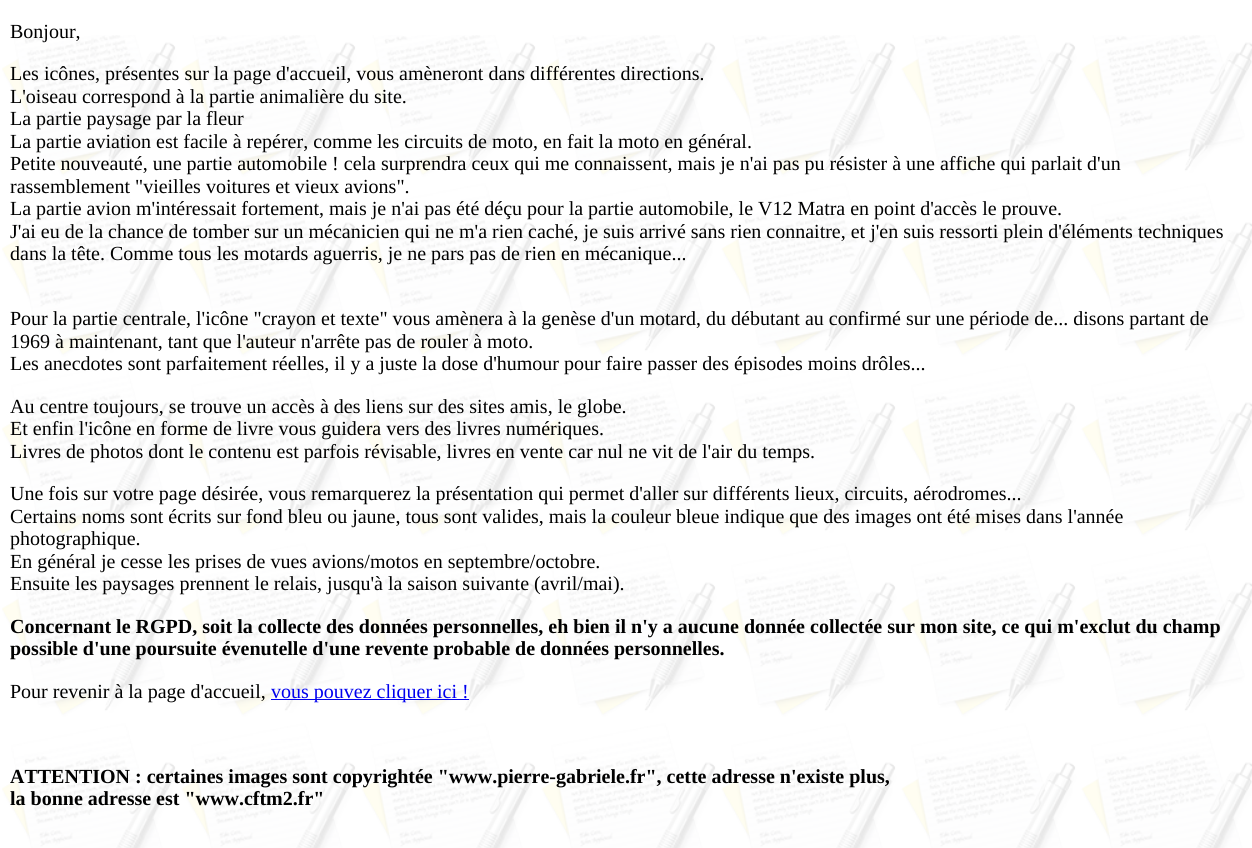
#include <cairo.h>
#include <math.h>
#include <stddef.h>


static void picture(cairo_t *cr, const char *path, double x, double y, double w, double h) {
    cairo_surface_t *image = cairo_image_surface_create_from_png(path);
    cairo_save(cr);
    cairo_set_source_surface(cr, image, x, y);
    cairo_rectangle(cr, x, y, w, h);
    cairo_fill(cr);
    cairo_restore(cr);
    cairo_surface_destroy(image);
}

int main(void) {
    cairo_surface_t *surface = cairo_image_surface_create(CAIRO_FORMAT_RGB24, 1252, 848);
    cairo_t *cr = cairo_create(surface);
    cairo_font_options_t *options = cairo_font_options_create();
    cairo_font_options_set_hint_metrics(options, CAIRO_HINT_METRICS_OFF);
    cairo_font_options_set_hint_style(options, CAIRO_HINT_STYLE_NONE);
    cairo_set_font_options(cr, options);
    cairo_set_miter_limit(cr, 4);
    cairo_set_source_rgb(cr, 1, 1, 1);
    cairo_paint(cr);
    picture(cr, "img1.png", 2, 35, 1250, 813);
    cairo_select_font_face(cr, "Liberation Serif", CAIRO_FONT_SLANT_NORMAL, CAIRO_FONT_WEIGHT_NORMAL);
    cairo_set_font_size(cr, 20);
    cairo_set_source_rgb(cr, 0, 0, 0);
    cairo_move_to(cr, 10, 38);
    cairo_show_text(cr, "Bonjour,");
    cairo_move_to(cr, 10, 80);
    cairo_show_text(cr, "Les icônes, présentes sur la page d'accueil, vous amèneront dans différentes directions.");
    cairo_move_to(cr, 10, 103);
    cairo_show_text(cr, "L'oiseau correspond à la partie animalière du site.");
    cairo_move_to(cr, 10, 125);
    cairo_show_text(cr, "La partie paysage par la fleur");
    cairo_move_to(cr, 10, 148);
    cairo_show_text(cr, "La partie aviation est facile à repérer, comme les circuits de moto, en fait la moto en général.");
    cairo_move_to(cr, 10, 170);
    cairo_show_text(cr, "Petite nouveauté, une partie automobile ! cela surprendra ceux qui me connaissent, mais je n'ai pas pu résister à une affiche qui parlait d'un");
    cairo_move_to(cr, 10, 193);
    cairo_show_text(cr, "rassemblement \"vieilles voitures et vieux avions\".");
    cairo_move_to(cr, 10, 215);
    cairo_show_text(cr, "La partie avion m'intéressait fortement, mais je n'ai pas été déçu pour la partie automobile, le V12 Matra en point d'accès le prouve.");
    cairo_move_to(cr, 10, 238);
    cairo_show_text(cr, "J'ai eu de la chance de tomber sur un mécanicien qui ne m'a rien caché, je suis arrivé sans rien connaitre, et j'en suis ressorti plein d'éléments techniques");
    cairo_move_to(cr, 10, 260);
    cairo_show_text(cr, "dans la tête. Comme tous les motards aguerris, je ne pars pas de rien en mécanique...");
    cairo_move_to(cr, 10, 325);
    cairo_show_text(cr, "Pour la partie centrale, l'icône \"crayon et texte\" vous amènera à la genèse d'un motard, du débutant au confirmé sur une période de... disons partant de");
    cairo_move_to(cr, 10, 348);
    cairo_show_text(cr, "1969 à maintenant, tant que l'auteur n'arrête pas de rouler à moto.");
    cairo_move_to(cr, 10, 370);
    cairo_show_text(cr, "Les anecdotes sont parfaitement réelles, il y a juste la dose d'humour pour faire passer des épisodes moins drôles...");
    cairo_move_to(cr, 10, 413);
    cairo_show_text(cr, "Au centre toujours, se trouve un accès à des liens sur des sites amis, le globe.");
    cairo_move_to(cr, 10, 435);
    cairo_show_text(cr, "Et enfin l'icône en forme de livre vous guidera vers des livres numériques.");
    cairo_move_to(cr, 10, 458);
    cairo_show_text(cr, "Livres de photos dont le contenu est parfois révisable, livres en vente car nul ne vit de l'air du temps.");
    cairo_move_to(cr, 10, 500);
    cairo_show_text(cr, "Une fois sur votre page désirée, vous remarquerez la présentation qui permet d'aller sur différents lieux, circuits, aérodromes...");
    cairo_move_to(cr, 10, 523);
    cairo_show_text(cr, "Certains noms sont écrits sur fond bleu ou jaune, tous sont valides, mais la couleur bleue indique que des images ont été mises dans l'année");
    cairo_move_to(cr, 10, 545);
    cairo_show_text(cr, "photographique.");
    cairo_move_to(cr, 10, 568);
    cairo_show_text(cr, "En général je cesse les prises de vues avions/motos en septembre/octobre.");
    cairo_move_to(cr, 10, 590);
    cairo_show_text(cr, "Ensuite les paysages prennent le relais, jusqu'à la saison suivante (avril/mai).");
    cairo_select_font_face(cr, "Liberation Serif", CAIRO_FONT_SLANT_NORMAL, CAIRO_FONT_WEIGHT_BOLD);
    cairo_move_to(cr, 10, 633);
    cairo_show_text(cr, "Concernant le RGPD, soit la collecte des données personnelles, eh bien il n'y a aucune donnée collectée sur mon site, ce qui m'exclut du champ");
    cairo_move_to(cr, 10, 655);
    cairo_show_text(cr, "possible d'une poursuite évenutelle d'une revente probable de données personnelles.");
    cairo_select_font_face(cr, "Liberation Serif", CAIRO_FONT_SLANT_NORMAL, CAIRO_FONT_WEIGHT_NORMAL);
    cairo_move_to(cr, 10, 698);
    cairo_show_text(cr, "Pour revenir à la page d'accueil,");
    cairo_set_source_rgb(cr, 0, 0, 0.933);
    cairo_rectangle(cr, 271, 699, 198, 1);
    cairo_fill(cr);
    cairo_move_to(cr, 271, 698);
    cairo_show_text(cr, "vous pouvez cliquer ici !");
    cairo_select_font_face(cr, "Liberation Serif", CAIRO_FONT_SLANT_NORMAL, CAIRO_FONT_WEIGHT_BOLD);
    cairo_set_source_rgb(cr, 0, 0, 0);
    cairo_move_to(cr, 10, 783);
    cairo_show_text(cr, "ATTENTION : certaines images sont copyrightée \"www.pierre-gabriele.fr\", cette adresse n'existe plus,");
    cairo_move_to(cr, 10, 805);
    cairo_show_text(cr, "la bonne adresse est \"www.cftm2.fr\"");
    cairo_surface_write_to_png(surface, "page.png");
    cairo_font_options_destroy(options);
    cairo_destroy(cr);
    cairo_surface_destroy(surface);
    return 0;
}
